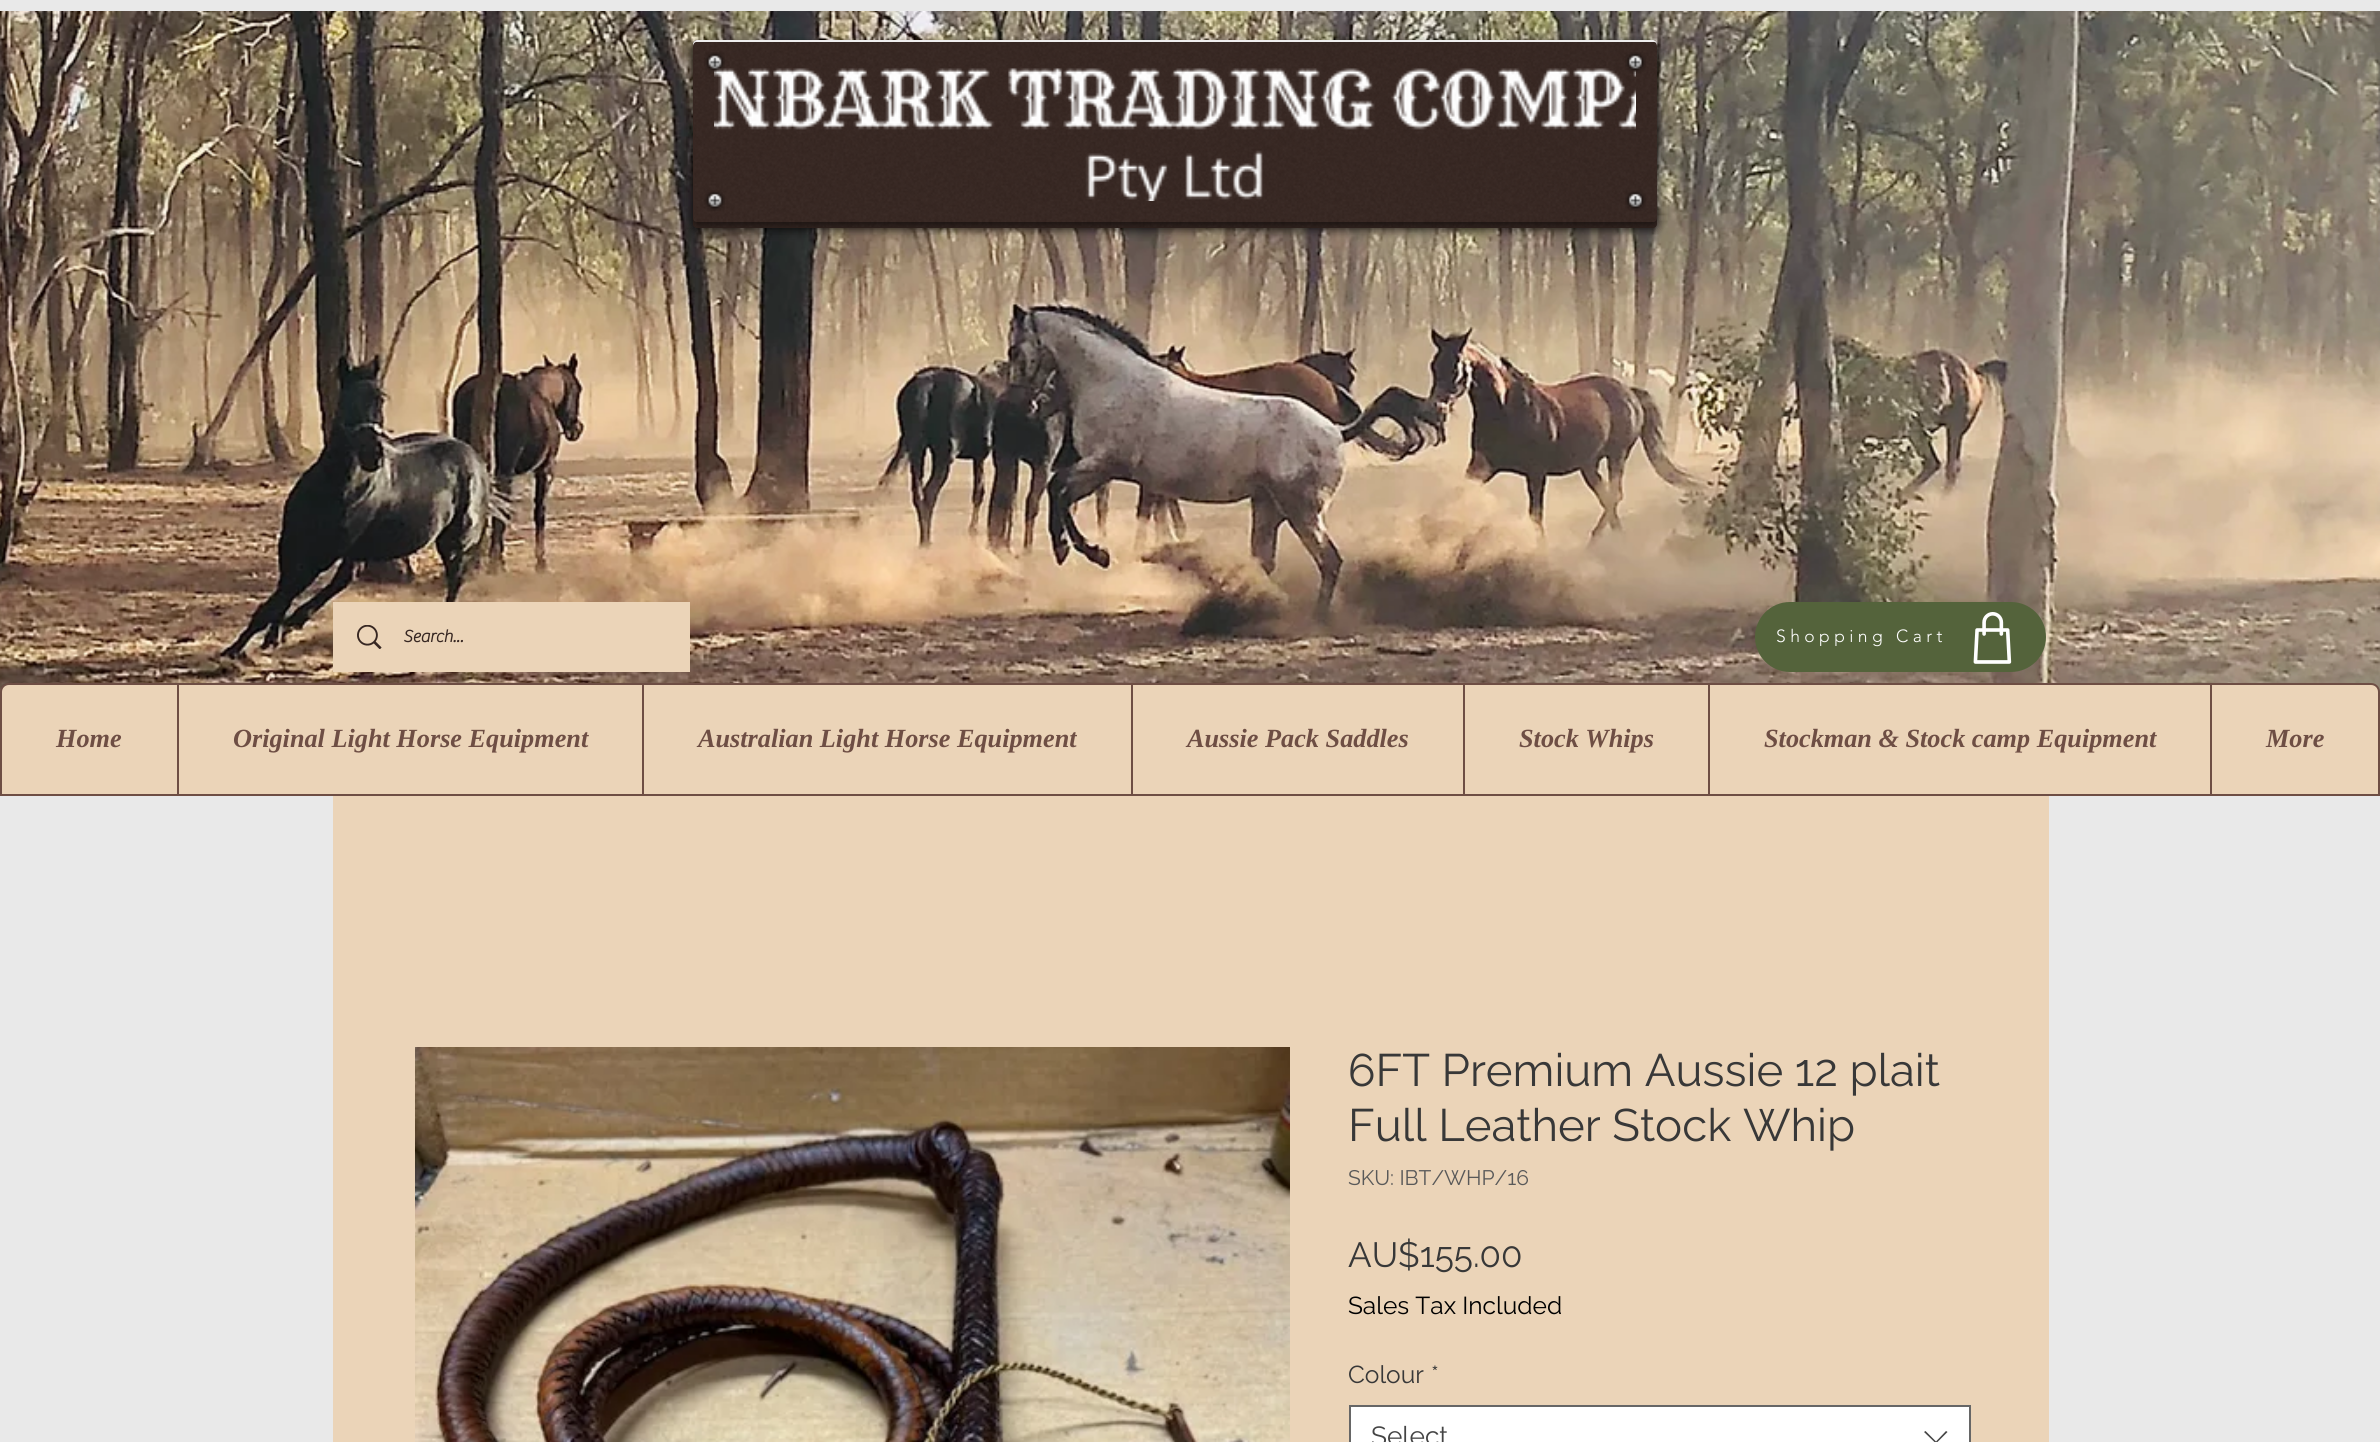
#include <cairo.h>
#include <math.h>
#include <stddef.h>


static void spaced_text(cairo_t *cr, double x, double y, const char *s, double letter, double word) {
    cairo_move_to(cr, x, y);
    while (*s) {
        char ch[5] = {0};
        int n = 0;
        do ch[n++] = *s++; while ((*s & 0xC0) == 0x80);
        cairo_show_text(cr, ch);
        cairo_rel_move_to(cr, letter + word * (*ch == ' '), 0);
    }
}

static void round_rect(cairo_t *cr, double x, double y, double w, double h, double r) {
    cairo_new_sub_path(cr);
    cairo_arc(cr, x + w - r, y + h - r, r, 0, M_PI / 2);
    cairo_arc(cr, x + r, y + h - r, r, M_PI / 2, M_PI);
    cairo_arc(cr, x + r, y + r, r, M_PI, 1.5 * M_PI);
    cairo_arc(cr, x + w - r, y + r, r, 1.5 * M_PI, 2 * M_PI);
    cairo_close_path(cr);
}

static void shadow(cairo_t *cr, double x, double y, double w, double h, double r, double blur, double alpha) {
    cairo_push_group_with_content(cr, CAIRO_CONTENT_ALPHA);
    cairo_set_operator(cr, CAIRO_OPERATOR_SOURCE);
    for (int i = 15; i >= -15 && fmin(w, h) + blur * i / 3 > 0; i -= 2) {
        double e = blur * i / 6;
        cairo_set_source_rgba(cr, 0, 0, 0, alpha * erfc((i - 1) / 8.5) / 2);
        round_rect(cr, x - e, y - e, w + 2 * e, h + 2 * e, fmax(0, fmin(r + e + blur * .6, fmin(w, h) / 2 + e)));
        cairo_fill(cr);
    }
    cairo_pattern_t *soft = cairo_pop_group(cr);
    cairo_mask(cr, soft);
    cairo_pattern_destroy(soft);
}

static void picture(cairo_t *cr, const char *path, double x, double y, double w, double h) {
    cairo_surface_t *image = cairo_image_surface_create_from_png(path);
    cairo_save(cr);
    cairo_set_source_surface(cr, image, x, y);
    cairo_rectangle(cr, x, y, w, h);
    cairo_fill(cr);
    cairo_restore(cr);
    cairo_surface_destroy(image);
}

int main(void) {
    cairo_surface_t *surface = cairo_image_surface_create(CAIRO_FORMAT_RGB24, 2380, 1442);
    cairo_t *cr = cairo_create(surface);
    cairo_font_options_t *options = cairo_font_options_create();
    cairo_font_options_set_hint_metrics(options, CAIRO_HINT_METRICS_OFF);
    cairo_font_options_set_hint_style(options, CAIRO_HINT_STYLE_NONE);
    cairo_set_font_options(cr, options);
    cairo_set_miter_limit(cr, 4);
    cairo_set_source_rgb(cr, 0.914, 0.914, 0.914);
    cairo_paint(cr);
    picture(cr, "img1.png", 0, 11, 2380, 681);
    cairo_set_source_rgb(cr, 0, 0, 0);
    shadow(cr, 693, 46, 964, 185, 4, 4.5, 0.53);
    cairo_set_source_rgb(cr, 0.216, 0.153, 0.133);
    round_rect(cr, 693, 42, 964, 186, 4);
    cairo_fill(cr);
    picture(cr, "img8.png", 695, 218, 962, 9);
    cairo_set_source_rgb(cr, 0, 0, 0);
    shadow(cr, 693, 44, 964, 182, 4, 4.5, 0.53);
    cairo_set_source_rgb(cr, 0.216, 0.153, 0.133);
    round_rect(cr, 693, 40, 964, 182, 4);
    cairo_fill(cr);
    picture(cr, "img2.png", 694, 41, 963, 181);
    cairo_set_source_rgba(cr, 1, 1, 1, 0.92);
    cairo_new_path(cr);
    cairo_move_to(cr, 696, 42);
    cairo_curve_to(cr, 695, 42, 693, 44, 693, 46);
    cairo_line_to(cr, 693, 44);
    cairo_curve_to(cr, 693, 42, 695, 40, 697, 40);
    cairo_line_to(cr, 1653, 40);
    cairo_curve_to(cr, 1655, 40, 1657, 42, 1657, 44);
    cairo_line_to(cr, 1657, 46);
    cairo_curve_to(cr, 1657, 44, 1656, 42, 1654, 42);
    cairo_close_path(cr);
    cairo_fill(cr);
    picture(cr, "img5.png", 714, 68, 922, 133);
    picture(cr, "img3.png", 704, 52, 21, 22);
    picture(cr, "img4.png", 1625, 52, 21, 22);
    picture(cr, "img6.png", 704, 190, 21, 21);
    picture(cr, "img7.png", 1625, 190, 21, 21);
    cairo_set_source_rgb(cr, 0.918, 0.831, 0.722);
    cairo_rectangle(cr, 333, 602, 357, 70);
    cairo_fill(cr);
    picture(cr, "img9.png", 357, 625, 25, 24);
    cairo_select_font_face(cr, "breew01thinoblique", CAIRO_FONT_SLANT_NORMAL, CAIRO_FONT_WEIGHT_BOLD);
    cairo_set_font_size(cr, 17.5);
    cairo_set_source_rgb(cr, 0.216, 0.153, 0.133);
    cairo_move_to(cr, 403, 642);
    cairo_show_text(cr, "Search...");
    cairo_set_source_rgb(cr, 0.329, 0.388, 0.231);
    round_rect(cr, 1755, 602, 291, 70, 35);
    cairo_fill(cr);
    cairo_select_font_face(cr, "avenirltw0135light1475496 Light", CAIRO_FONT_SLANT_NORMAL, CAIRO_FONT_WEIGHT_NORMAL);
    cairo_set_source_rgb(cr, 1, 1, 1);
    spaced_text(cr, 1776, 642, "Shopping Cart", 4.4, 0);
    picture(cr, "img10.png", 1973, 612, 39, 52);
    cairo_set_source_rgb(cr, 0.918, 0.831, 0.722);
    cairo_new_path(cr);
    cairo_move_to(cr, 9, 684);
    cairo_line_to(cr, 2371, 684);
    cairo_curve_to(cr, 2375.5, 684, 2379, 687.5, 2379, 692);
    cairo_line_to(cr, 2379, 795);
    cairo_line_to(cr, 1, 795);
    cairo_line_to(cr, 1, 692);
    cairo_curve_to(cr, 1, 687.5, 4.5, 684, 9, 684);
    cairo_close_path(cr);
    cairo_fill_preserve(cr);
    cairo_set_source_rgb(cr, 0.431, 0.306, 0.267);
    cairo_stroke(cr);
    cairo_select_font_face(cr, "Liberation Serif", CAIRO_FONT_SLANT_ITALIC, CAIRO_FONT_WEIGHT_BOLD);
    cairo_set_font_size(cr, 26.25);
    cairo_move_to(cr, 56, 747);
    cairo_show_text(cr, "Home");
    cairo_rectangle(cr, 177, 684, 2, 111);
    cairo_fill(cr);
    cairo_move_to(cr, 233, 747);
    cairo_show_text(cr, "Original Light Horse Equipment");
    cairo_rectangle(cr, 642, 684, 2, 111);
    cairo_fill(cr);
    cairo_move_to(cr, 698, 747);
    cairo_show_text(cr, "Australian Light Horse Equipment");
    cairo_rectangle(cr, 1131, 684, 2, 111);
    cairo_fill(cr);
    cairo_move_to(cr, 1187, 747);
    cairo_show_text(cr, "Aussie Pack Saddles");
    cairo_rectangle(cr, 1463, 684, 2, 111);
    cairo_fill(cr);
    cairo_move_to(cr, 1519, 747);
    cairo_show_text(cr, "Stock Whips");
    cairo_rectangle(cr, 1708, 684, 2, 111);
    cairo_fill(cr);
    cairo_move_to(cr, 1764, 747);
    cairo_show_text(cr, "Stockman & Stock camp Equipment");
    cairo_rectangle(cr, 2210, 684, 2, 111);
    cairo_fill(cr);
    cairo_move_to(cr, 2266, 747);
    cairo_show_text(cr, "More");
    cairo_set_source_rgb(cr, 0.918, 0.831, 0.722);
    cairo_rectangle(cr, 333, 796, 1716, 646);
    cairo_fill(cr);
    picture(cr, "img11.png", 415, 1047, 875, 395);
    cairo_select_font_face(cr, "Raleway", CAIRO_FONT_SLANT_NORMAL, CAIRO_FONT_WEIGHT_NORMAL);
    cairo_set_font_size(cr, 45.5);
    cairo_set_source_rgb(cr, 0.22, 0.22, 0.22);
    cairo_move_to(cr, 1348, 1086);
    cairo_show_text(cr, "6FT Premium Aussie 12 plait");
    cairo_move_to(cr, 1348, 1141);
    cairo_show_text(cr, "Full Leather Stock Whip");
    cairo_set_font_size(cr, 21);
    cairo_set_source_rgb(cr, 0.349, 0.349, 0.349);
    cairo_move_to(cr, 1348, 1185);
    cairo_show_text(cr, "SKU: IBT/WHP/16");
    cairo_set_font_size(cr, 35);
    cairo_set_source_rgb(cr, 0.22, 0.22, 0.22);
    cairo_move_to(cr, 1348, 1267);
    cairo_show_text(cr, "AU$155.00");
    cairo_set_font_size(cr, 24.5);
    cairo_set_source_rgb(cr, 0, 0, 0);
    cairo_move_to(cr, 1348, 1314);
    cairo_show_text(cr, "Sales Tax Included");
    cairo_set_source_rgb(cr, 0.22, 0.22, 0.22);
    cairo_move_to(cr, 1348, 1383);
    cairo_show_text(cr, "Colour");
    cairo_move_to(cr, 1431, 1383);
    cairo_show_text(cr, "*");
    cairo_set_source_rgb(cr, 1, 1, 1);
    cairo_rectangle(cr, 1350, 1406, 620, 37);
    cairo_fill_preserve(cr);
    cairo_set_source_rgb(cr, 0.4, 0.4, 0.4);
    cairo_stroke(cr);
    cairo_set_font_size(cr, 26.25);
    cairo_set_source_rgb(cr, 0.267, 0.267, 0.267);
    cairo_move_to(cr, 1371, 1445);
    cairo_show_text(cr, "Select");
    cairo_set_fill_rule(cr, CAIRO_FILL_RULE_EVEN_ODD);
    cairo_new_path(cr);
    cairo_move_to(cr, 1946, 1431);
    cairo_line_to(cr, 1947.5, 1432);
    cairo_line_to(cr, 1936, 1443.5);
    cairo_line_to(cr, 1924, 1432);
    cairo_line_to(cr, 1925.5, 1431);
    cairo_line_to(cr, 1936, 1441.5);
    cairo_close_path(cr);
    cairo_fill(cr);
    cairo_surface_write_to_png(surface, "page.png");
    cairo_font_options_destroy(options);
    cairo_destroy(cr);
    cairo_surface_destroy(surface);
    return 0;
}
